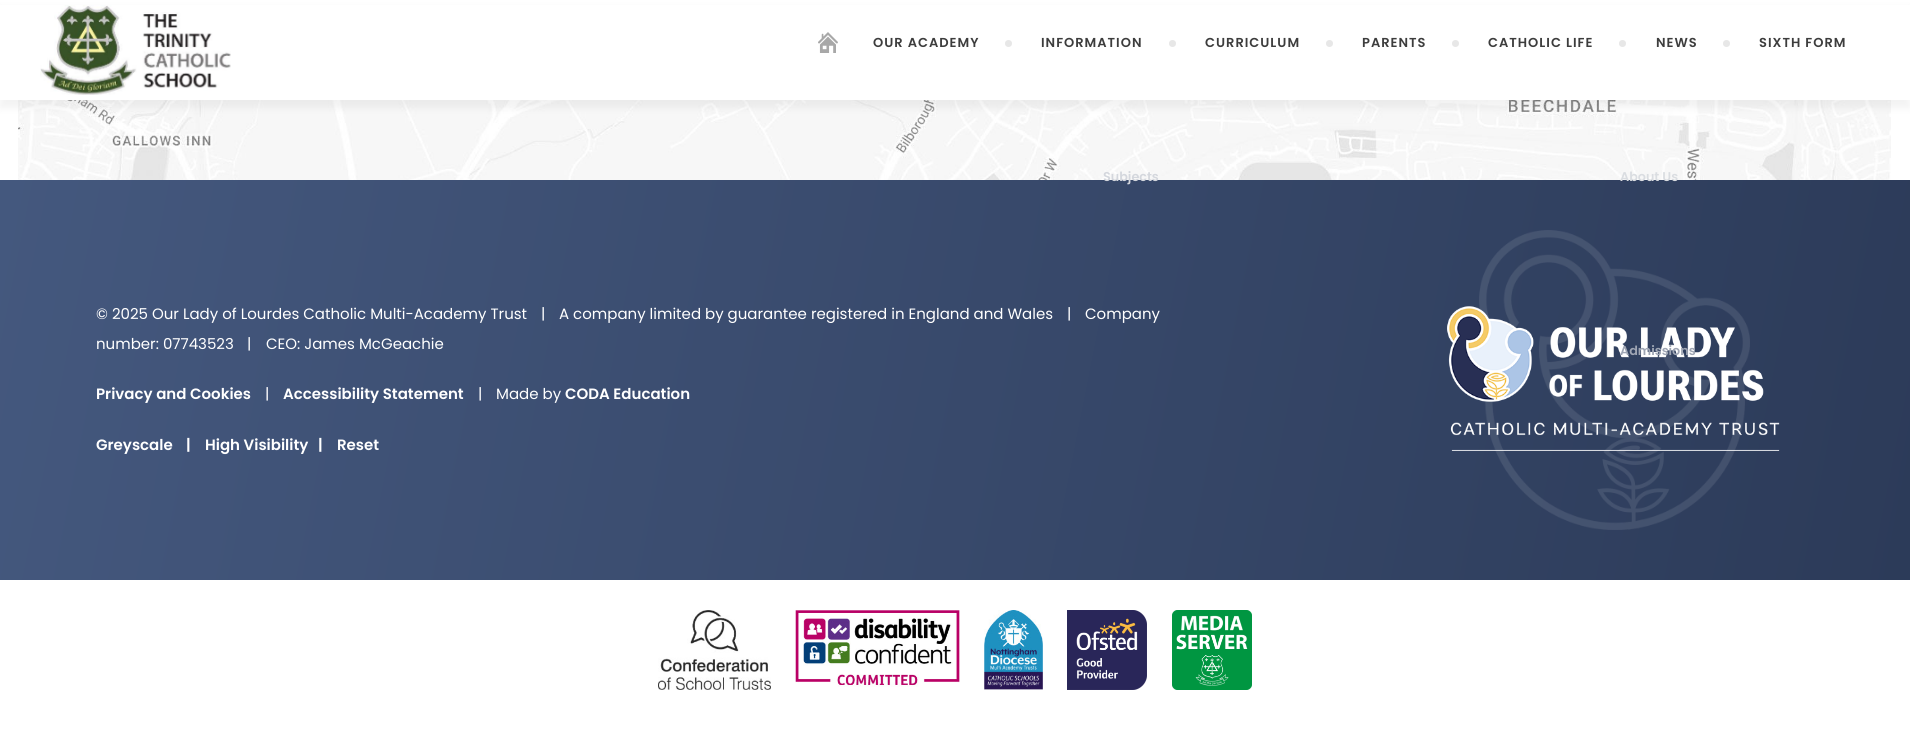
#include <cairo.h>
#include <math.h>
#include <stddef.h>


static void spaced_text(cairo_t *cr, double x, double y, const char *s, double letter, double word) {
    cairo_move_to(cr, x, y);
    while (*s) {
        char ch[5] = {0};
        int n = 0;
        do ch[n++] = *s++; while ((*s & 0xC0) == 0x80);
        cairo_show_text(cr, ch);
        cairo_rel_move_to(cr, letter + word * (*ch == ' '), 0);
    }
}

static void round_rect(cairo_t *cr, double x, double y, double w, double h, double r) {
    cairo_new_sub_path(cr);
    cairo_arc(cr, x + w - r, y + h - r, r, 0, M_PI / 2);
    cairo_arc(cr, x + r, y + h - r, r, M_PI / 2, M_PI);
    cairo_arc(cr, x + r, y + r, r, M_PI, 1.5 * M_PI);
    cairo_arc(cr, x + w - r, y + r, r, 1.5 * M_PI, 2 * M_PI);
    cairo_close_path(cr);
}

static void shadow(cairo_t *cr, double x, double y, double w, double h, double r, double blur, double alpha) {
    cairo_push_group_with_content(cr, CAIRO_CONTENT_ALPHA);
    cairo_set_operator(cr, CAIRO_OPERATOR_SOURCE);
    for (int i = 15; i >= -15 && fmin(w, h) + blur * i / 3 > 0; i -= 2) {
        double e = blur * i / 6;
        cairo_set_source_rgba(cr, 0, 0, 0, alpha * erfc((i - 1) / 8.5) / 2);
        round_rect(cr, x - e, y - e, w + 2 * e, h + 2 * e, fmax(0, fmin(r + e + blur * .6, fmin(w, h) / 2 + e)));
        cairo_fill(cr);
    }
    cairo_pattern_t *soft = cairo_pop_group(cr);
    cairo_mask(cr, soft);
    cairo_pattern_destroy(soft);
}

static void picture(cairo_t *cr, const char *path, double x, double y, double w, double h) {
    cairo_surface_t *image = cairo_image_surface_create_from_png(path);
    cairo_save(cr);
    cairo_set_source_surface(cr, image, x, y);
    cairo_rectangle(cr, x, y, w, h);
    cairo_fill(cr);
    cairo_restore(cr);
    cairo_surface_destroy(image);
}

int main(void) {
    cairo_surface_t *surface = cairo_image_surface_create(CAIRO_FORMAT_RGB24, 1910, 731);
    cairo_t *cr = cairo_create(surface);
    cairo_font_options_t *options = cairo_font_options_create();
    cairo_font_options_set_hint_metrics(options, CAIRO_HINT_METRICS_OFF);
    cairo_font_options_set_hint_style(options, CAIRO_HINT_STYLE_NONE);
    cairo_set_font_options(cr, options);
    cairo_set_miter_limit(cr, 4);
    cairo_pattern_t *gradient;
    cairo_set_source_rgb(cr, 1, 1, 1);
    cairo_paint(cr);
    picture(cr, "img3.png", 18, 100, 1873, 80);
    cairo_set_source_rgb(cr, 0, 0, 0);
    shadow(cr, 0, 8, 1910, 100, 0, 4, 0.05);
    cairo_set_source_rgb(cr, 1, 1, 1);
    cairo_rectangle(cr, 0, 5, 1910, 95);
    cairo_fill(cr);
    picture(cr, "img1.png", 40, 5, 191, 90);
    picture(cr, "img2.png", 818, 32, 20, 21);
    cairo_select_font_face(cr, "Poppins SemiBold", CAIRO_FONT_SLANT_NORMAL, CAIRO_FONT_WEIGHT_NORMAL);
    cairo_set_font_size(cr, 13);
    cairo_set_source_rgb(cr, 0.239, 0.239, 0.239);
    spaced_text(cr, 873, 47, "OUR ACADEMY", 1, 0);
    cairo_set_source_rgb(cr, 0.906, 0.906, 0.906);
    cairo_new_path(cr);
    cairo_arc(cr, 1008.5, 43.5, 3.5, 0, 2 * M_PI);
    cairo_fill(cr);
    cairo_set_source_rgb(cr, 0.239, 0.239, 0.239);
    spaced_text(cr, 1041, 47, "INFORMATION", 1, 0);
    cairo_set_source_rgb(cr, 0.906, 0.906, 0.906);
    cairo_new_path(cr);
    cairo_arc(cr, 1172.5, 43.5, 3.5, 0, 2 * M_PI);
    cairo_fill(cr);
    cairo_set_source_rgb(cr, 0.239, 0.239, 0.239);
    spaced_text(cr, 1205, 47, "CURRICULUM", 1, 0);
    cairo_set_source_rgb(cr, 0.906, 0.906, 0.906);
    cairo_new_path(cr);
    cairo_arc(cr, 1329.5, 43.5, 3.5, 0, 2 * M_PI);
    cairo_fill(cr);
    gradient = cairo_pattern_create_linear(-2.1, 191, 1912, 569);
    cairo_pattern_add_color_stop_rgba(gradient, 0, 0.267, 0.345, 0.494, 1);
    cairo_pattern_add_color_stop_rgba(gradient, 1, 0.173, 0.231, 0.349, 1);
    cairo_set_source(cr, gradient);
    cairo_pattern_destroy(gradient);
    cairo_rectangle(cr, 0, 180, 1910, 400);
    cairo_fill(cr);
    cairo_set_font_size(cr, 12.75);
    cairo_set_source_rgb(cr, 0.831, 0.843, 0.867);
    cairo_move_to(cr, 1103, 181);
    cairo_show_text(cr, "Subjects");
    cairo_set_font_size(cr, 13);
    cairo_set_source_rgb(cr, 0.239, 0.239, 0.239);
    spaced_text(cr, 1362, 47, "PARENTS", 1, 0);
    cairo_set_source_rgb(cr, 0.906, 0.906, 0.906);
    cairo_new_path(cr);
    cairo_arc(cr, 1455.5, 43.5, 3.5, 0, 2 * M_PI);
    cairo_fill(cr);
    cairo_set_source_rgb(cr, 0.239, 0.239, 0.239);
    spaced_text(cr, 1488, 47, "CATHOLIC LIFE", 1, 0);
    cairo_set_source_rgb(cr, 0.906, 0.906, 0.906);
    cairo_new_path(cr);
    cairo_arc(cr, 1622.5, 43.5, 3.5, 0, 2 * M_PI);
    cairo_fill(cr);
    cairo_set_source_rgb(cr, 0.239, 0.239, 0.239);
    spaced_text(cr, 1759, 47, "SIXTH FORM", 1, 0);
    cairo_set_font_size(cr, 12.75);
    cairo_set_source_rgb(cr, 0.855, 0.867, 0.882);
    cairo_move_to(cr, 1620, 181);
    cairo_show_text(cr, "About Us");
    picture(cr, "img4.png", 1479, 230, 271, 300);
    picture(cr, "img5.png", 1447, 306, 333, 145);
    cairo_set_source_rgb(cr, 0.624, 0.651, 0.706);
    cairo_move_to(cr, 1620, 355);
    cairo_show_text(cr, "Admissions");
    cairo_set_font_size(cr, 13);
    cairo_set_source_rgb(cr, 0.239, 0.239, 0.239);
    spaced_text(cr, 1656, 47, "NEWS", 1, 0);
    cairo_set_source_rgb(cr, 0.906, 0.906, 0.906);
    cairo_new_path(cr);
    cairo_arc(cr, 1726.5, 43.5, 3.5, 0, 2 * M_PI);
    cairo_fill(cr);
    cairo_select_font_face(cr, "Poppins", CAIRO_FONT_SLANT_NORMAL, CAIRO_FONT_WEIGHT_NORMAL);
    cairo_set_font_size(cr, 15);
    cairo_set_source_rgb(cr, 1, 1, 1);
    cairo_move_to(cr, 96, 319);
    cairo_show_text(cr, "© 2025 Our Lady of Lourdes Catholic Multi-Academy Trust");
    cairo_move_to(cr, 541, 319);
    cairo_show_text(cr, "|");
    cairo_move_to(cr, 559, 319);
    cairo_show_text(cr, "A company limited by guarantee registered in England and Wales");
    cairo_move_to(cr, 1067, 319);
    cairo_show_text(cr, "|");
    cairo_move_to(cr, 1085, 319);
    cairo_show_text(cr, "Company");
    cairo_move_to(cr, 96, 349);
    cairo_show_text(cr, "number: 07743523");
    cairo_move_to(cr, 247, 349);
    cairo_show_text(cr, "|");
    cairo_move_to(cr, 266, 349);
    cairo_show_text(cr, "CEO: James McGeachie");
    cairo_select_font_face(cr, "Poppins SemiBold", CAIRO_FONT_SLANT_NORMAL, CAIRO_FONT_WEIGHT_NORMAL);
    cairo_move_to(cr, 96, 399);
    cairo_show_text(cr, "Privacy and Cookies");
    cairo_select_font_face(cr, "Poppins", CAIRO_FONT_SLANT_NORMAL, CAIRO_FONT_WEIGHT_NORMAL);
    cairo_move_to(cr, 265, 399);
    cairo_show_text(cr, "|");
    cairo_select_font_face(cr, "Poppins SemiBold", CAIRO_FONT_SLANT_NORMAL, CAIRO_FONT_WEIGHT_NORMAL);
    cairo_move_to(cr, 283, 399);
    cairo_show_text(cr, "Accessibility Statement");
    cairo_select_font_face(cr, "Poppins", CAIRO_FONT_SLANT_NORMAL, CAIRO_FONT_WEIGHT_NORMAL);
    cairo_move_to(cr, 478, 399);
    cairo_show_text(cr, "|");
    cairo_move_to(cr, 496, 399);
    cairo_show_text(cr, "Made by");
    cairo_select_font_face(cr, "Poppins SemiBold", CAIRO_FONT_SLANT_NORMAL, CAIRO_FONT_WEIGHT_NORMAL);
    cairo_move_to(cr, 565, 399);
    cairo_show_text(cr, "CODA Education");
    cairo_move_to(cr, 96, 450);
    cairo_show_text(cr, "Greyscale");
    cairo_move_to(cr, 186, 450);
    cairo_show_text(cr, "|");
    cairo_move_to(cr, 205, 450);
    cairo_show_text(cr, "High Visibility");
    cairo_move_to(cr, 318, 450);
    cairo_show_text(cr, "|");
    cairo_move_to(cr, 337, 450);
    cairo_show_text(cr, "Reset");
    picture(cr, "img6.png", 658, 610, 113, 80);
    picture(cr, "img7.png", 795, 610, 165, 77);
    picture(cr, "img8.png", 984, 610, 59, 80);
    picture(cr, "img9.png", 1067, 610, 80, 80);
    picture(cr, "img10.png", 1172, 610, 80, 80);
    cairo_surface_write_to_png(surface, "page.png");
    cairo_font_options_destroy(options);
    cairo_destroy(cr);
    cairo_surface_destroy(surface);
    return 0;
}
